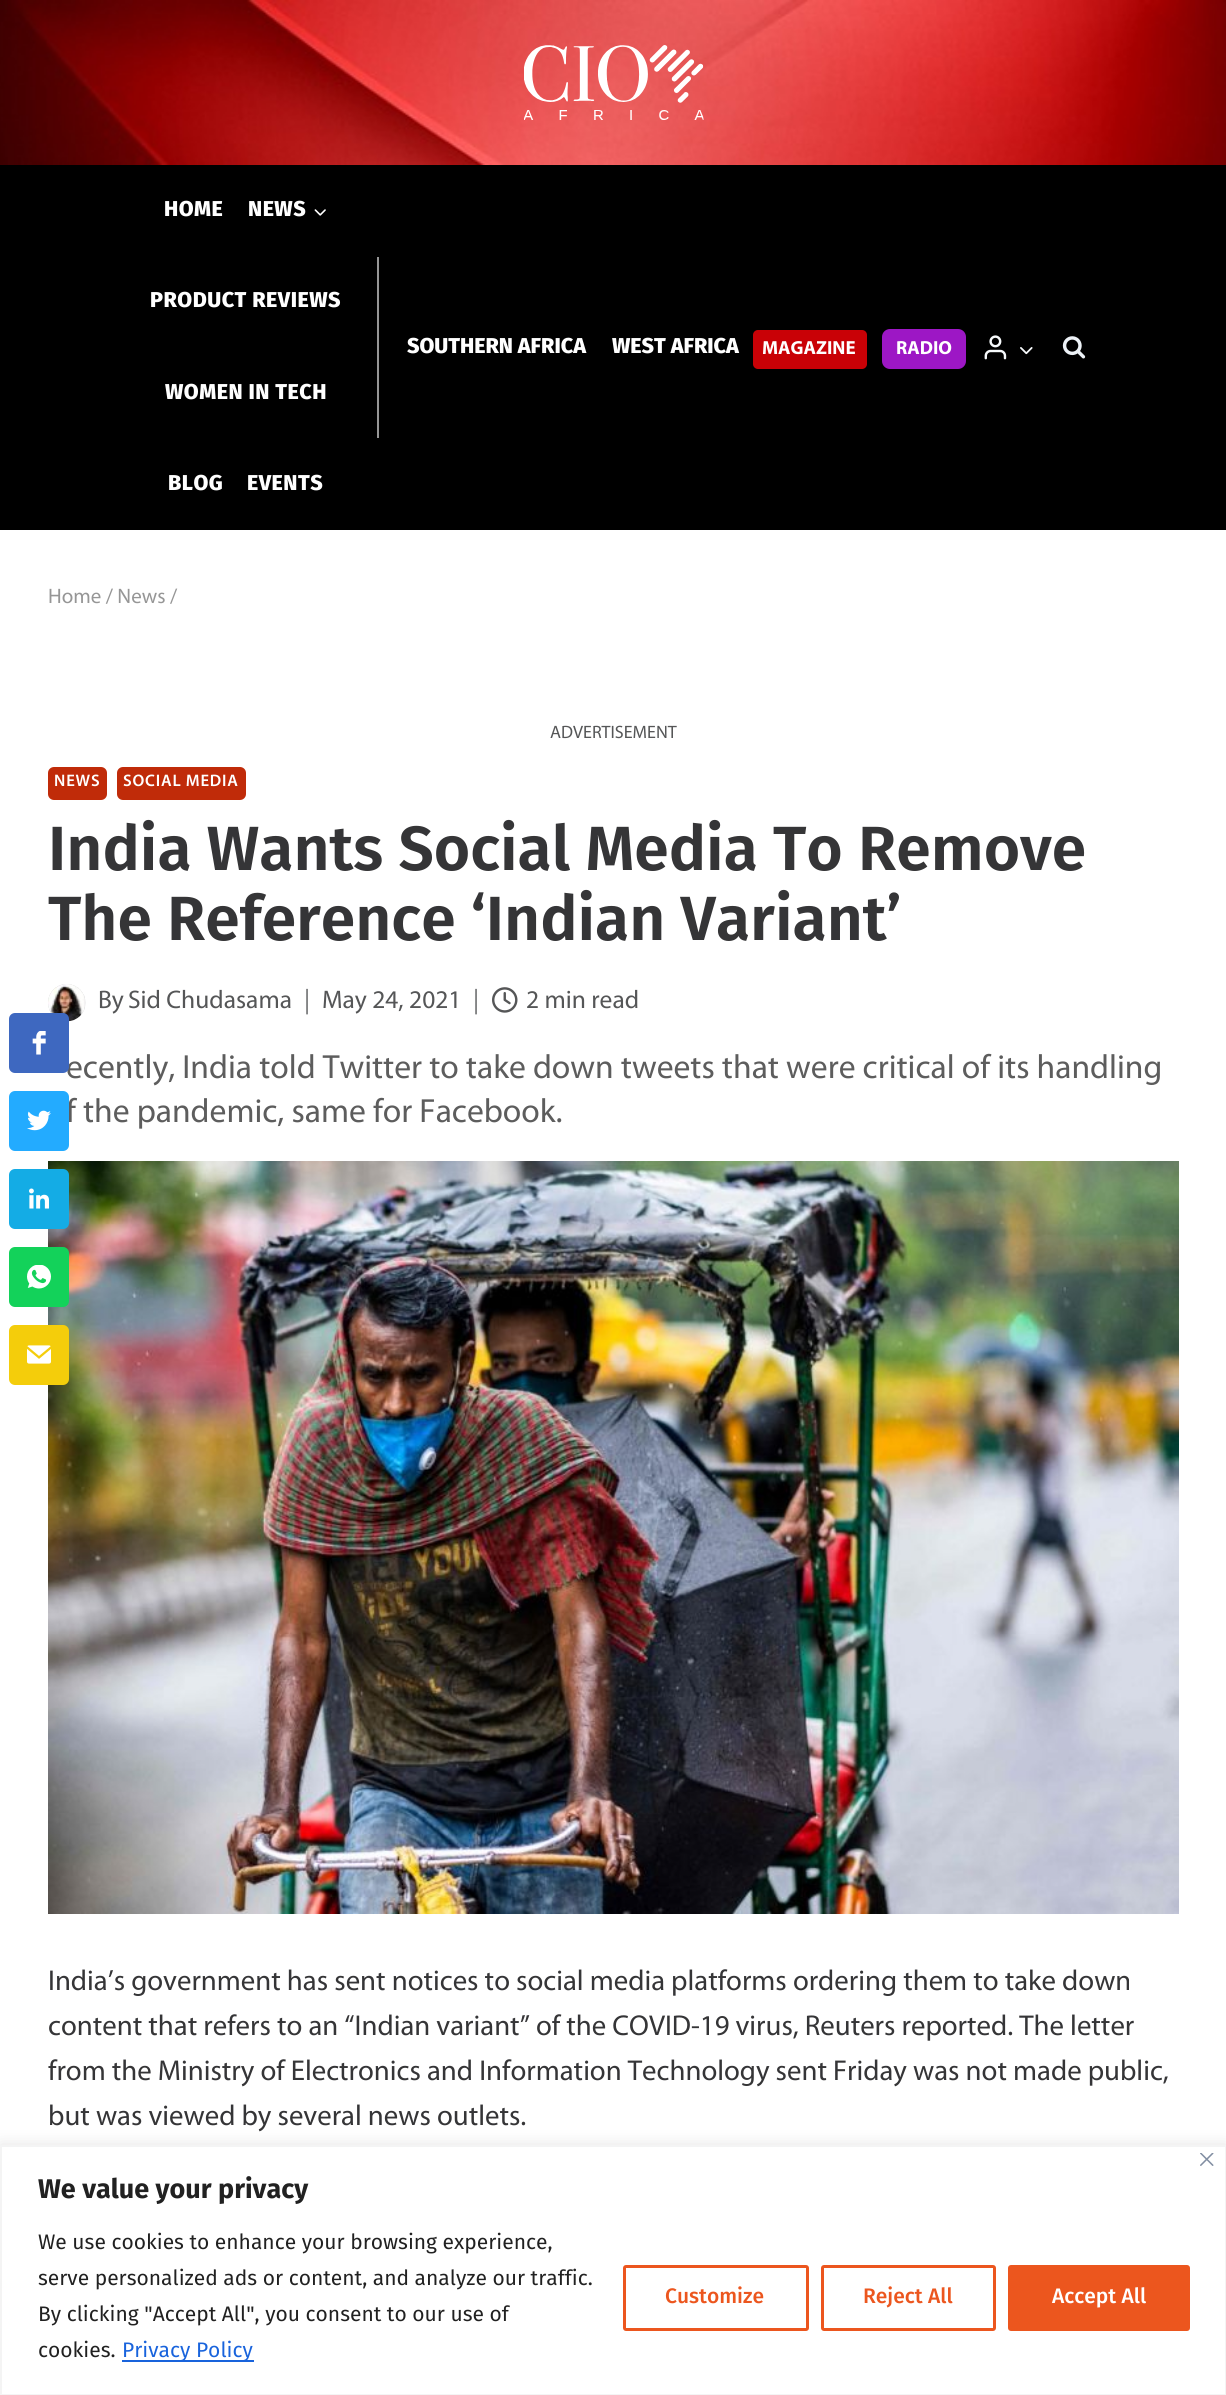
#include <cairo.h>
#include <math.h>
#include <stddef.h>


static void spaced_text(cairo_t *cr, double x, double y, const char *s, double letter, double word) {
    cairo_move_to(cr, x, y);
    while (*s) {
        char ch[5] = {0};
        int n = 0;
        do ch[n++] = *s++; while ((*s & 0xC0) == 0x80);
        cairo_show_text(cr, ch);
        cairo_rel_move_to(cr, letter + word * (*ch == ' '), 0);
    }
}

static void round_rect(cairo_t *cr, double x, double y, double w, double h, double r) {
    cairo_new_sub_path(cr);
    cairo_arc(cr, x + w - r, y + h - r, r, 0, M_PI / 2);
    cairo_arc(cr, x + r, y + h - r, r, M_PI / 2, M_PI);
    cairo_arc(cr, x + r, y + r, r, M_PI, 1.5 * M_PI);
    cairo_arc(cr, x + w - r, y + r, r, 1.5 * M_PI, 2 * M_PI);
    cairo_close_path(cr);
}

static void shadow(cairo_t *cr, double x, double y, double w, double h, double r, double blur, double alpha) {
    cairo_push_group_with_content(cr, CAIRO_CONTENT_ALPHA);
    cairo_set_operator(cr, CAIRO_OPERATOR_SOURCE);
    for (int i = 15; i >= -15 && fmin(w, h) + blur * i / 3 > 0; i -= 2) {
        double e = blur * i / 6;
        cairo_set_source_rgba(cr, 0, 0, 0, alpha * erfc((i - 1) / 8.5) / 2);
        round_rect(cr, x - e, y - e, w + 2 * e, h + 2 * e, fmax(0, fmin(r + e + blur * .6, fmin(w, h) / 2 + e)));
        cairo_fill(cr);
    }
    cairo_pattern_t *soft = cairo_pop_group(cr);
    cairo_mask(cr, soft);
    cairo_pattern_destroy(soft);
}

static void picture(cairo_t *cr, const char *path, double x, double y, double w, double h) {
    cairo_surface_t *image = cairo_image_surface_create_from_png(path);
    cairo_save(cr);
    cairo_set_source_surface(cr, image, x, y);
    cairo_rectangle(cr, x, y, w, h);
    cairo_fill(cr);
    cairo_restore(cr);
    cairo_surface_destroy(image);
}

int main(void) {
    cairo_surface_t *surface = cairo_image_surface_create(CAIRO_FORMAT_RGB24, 1226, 2395);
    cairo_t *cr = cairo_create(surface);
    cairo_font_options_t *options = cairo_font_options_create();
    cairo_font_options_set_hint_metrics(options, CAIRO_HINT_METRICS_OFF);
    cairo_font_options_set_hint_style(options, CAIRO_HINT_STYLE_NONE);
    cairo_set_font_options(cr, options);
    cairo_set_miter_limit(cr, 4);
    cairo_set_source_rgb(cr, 1, 1, 1);
    cairo_paint(cr);
    picture(cr, "img1.png", 0, 0, 1226, 165);
    picture(cr, "img2.png", 524, 45, 180, 75);
    cairo_set_source_rgb(cr, 0, 0, 0);
    cairo_rectangle(cr, 0, 165, 1226, 365);
    cairo_fill(cr);
    cairo_select_font_face(cr, "Fira Sans ExtraBold", CAIRO_FONT_SLANT_NORMAL, CAIRO_FONT_WEIGHT_NORMAL);
    cairo_set_font_size(cr, 21.5);
    cairo_set_source_rgb(cr, 1, 1, 1);
    spaced_text(cr, 164, 216, "HOME", 0.5, 0);
    spaced_text(cr, 248, 216, "NEWS", 0.5, 0);
    picture(cr, "img3.png", 314, 209, 12, 7);
    spaced_text(cr, 150, 307, "PRODUCT REVIEWS", 0.5, 0);
    spaced_text(cr, 165, 399, "WOMEN IN TECH", 0.5, 0);
    spaced_text(cr, 168, 490, "BLOG", 0.5, 0);
    spaced_text(cr, 247, 490, "EVENTS", 0.5, 0);
    cairo_set_source_rgb(cr, 0.588, 0.588, 0.588);
    cairo_rectangle(cr, 377, 257, 2, 181);
    cairo_fill(cr);
    cairo_set_source_rgb(cr, 1, 1, 1);
    cairo_move_to(cr, 407, 353);
    cairo_show_text(cr, "SOUTHERN AFRICA");
    cairo_move_to(cr, 612, 353);
    cairo_show_text(cr, "WEST AFRICA");
    cairo_set_source_rgb(cr, 0.788, 0.004, 0.024);
    round_rect(cr, 753, 330, 114, 39, 5);
    cairo_fill(cr);
    cairo_select_font_face(cr, "Myriad", CAIRO_FONT_SLANT_NORMAL, CAIRO_FONT_WEIGHT_BOLD);
    cairo_set_font_size(cr, 19);
    cairo_set_source_rgb(cr, 1, 1, 1);
    cairo_move_to(cr, 762, 354);
    cairo_show_text(cr, "MAGAZINE");
    cairo_set_source_rgb(cr, 0.616, 0.09, 0.773);
    round_rect(cr, 882, 329, 84, 40, 8);
    cairo_fill(cr);
    cairo_set_source_rgb(cr, 1, 1, 1);
    cairo_move_to(cr, 896, 354);
    cairo_show_text(cr, "RADIO");
    picture(cr, "img4.png", 984, 335, 23, 25);
    picture(cr, "img5.png", 1020, 347, 13, 8);
    picture(cr, "img6.png", 1062, 336, 24, 23);
    cairo_select_font_face(cr, "Myriad", CAIRO_FONT_SLANT_NORMAL, CAIRO_FONT_WEIGHT_NORMAL);
    cairo_set_font_size(cr, 21);
    cairo_set_source_rgb(cr, 0.588, 0.588, 0.588);
    cairo_move_to(cr, 48, 603);
    cairo_show_text(cr, "Home / News /");
    cairo_set_font_size(cr, 18);
    cairo_set_source_rgb(cr, 0.333, 0.337, 0.341);
    cairo_move_to(cr, 550, 738);
    cairo_show_text(cr, "ADVERTISEMENT");
    cairo_set_source_rgb(cr, 0.753, 0.169, 0.039);
    round_rect(cr, 48, 767, 59, 33, 6);
    cairo_fill(cr);
    cairo_select_font_face(cr, "Myriad SemiBold", CAIRO_FONT_SLANT_NORMAL, CAIRO_FONT_WEIGHT_NORMAL);
    cairo_set_font_size(cr, 16.75);
    cairo_set_source_rgb(cr, 1, 1, 1);
    spaced_text(cr, 54, 786, "NEWS", 0.8, 0);
    cairo_set_source_rgb(cr, 0.753, 0.169, 0.039);
    round_rect(cr, 117, 767, 129, 33, 6);
    cairo_fill(cr);
    cairo_set_source_rgb(cr, 1, 1, 1);
    spaced_text(cr, 123, 786, "SOCIAL MEDIA", 0.8, 0);
    cairo_select_font_face(cr, "Fira Sans SemiBold", CAIRO_FONT_SLANT_NORMAL, CAIRO_FONT_WEIGHT_NORMAL);
    cairo_set_font_size(cr, 62.4);
    cairo_set_source_rgb(cr, 0.208, 0.208, 0.216);
    cairo_move_to(cr, 48, 870);
    cairo_show_text(cr, "India Wants Social Media To Remove");
    cairo_move_to(cr, 48, 940);
    cairo_show_text(cr, "The Reference ‘Indian Variant’");
    picture(cr, "img7.png", 48, 984, 38, 33);
    picture(cr, "img8.png", 48, 984, 37, 38);
    cairo_select_font_face(cr, "Myriad", CAIRO_FONT_SLANT_NORMAL, CAIRO_FONT_WEIGHT_NORMAL);
    cairo_set_font_size(cr, 25.5);
    cairo_set_source_rgb(cr, 0.333, 0.337, 0.341);
    cairo_move_to(cr, 98, 1008);
    cairo_show_text(cr, "By");
    cairo_move_to(cr, 128, 1008);
    cairo_show_text(cr, "Sid Chudasama");
    cairo_set_source_rgb(cr, 0.467, 0.471, 0.475);
    cairo_move_to(cr, 304, 1008);
    cairo_show_text(cr, "|");
    cairo_set_source_rgb(cr, 0.333, 0.337, 0.341);
    cairo_move_to(cr, 322, 1008);
    cairo_show_text(cr, "May 24, 2021");
    cairo_set_source_rgb(cr, 0.467, 0.471, 0.475);
    cairo_move_to(cr, 473, 1008);
    cairo_show_text(cr, "|");
    picture(cr, "img9.png", 492, 987, 26, 26);
    cairo_set_source_rgb(cr, 0.333, 0.337, 0.341);
    cairo_move_to(cr, 526, 1008);
    cairo_show_text(cr, "2 min read");
    cairo_set_font_size(cr, 33.6);
    cairo_set_source_rgb(cr, 0.365, 0.365, 0.365);
    cairo_move_to(cr, 66, 1078);
    cairo_show_text(cr, "ecently, India told Twitter to take down tweets that were critical of its handling");
    cairo_set_source_rgb(cr, 0.243, 0.408, 0.753);
    round_rect(cr, 9, 1013, 60, 60, 6);
    cairo_fill(cr);
    picture(cr, "img10.png", 32, 1031, 14, 24);
    cairo_set_source_rgb(cr, 0.365, 0.365, 0.365);
    cairo_move_to(cr, 66, 1122);
    cairo_show_text(cr, "f the pandemic, same for Facebook.");
    cairo_set_source_rgb(cr, 0.137, 0.671, 1);
    round_rect(cr, 9, 1091, 60, 60, 6);
    cairo_fill(cr);
    picture(cr, "img11.png", 27, 1110, 24, 21);
    picture(cr, "img15.png", 48, 1161, 1131, 753);
    cairo_set_source_rgb(cr, 0.082, 0.675, 0.898);
    round_rect(cr, 9, 1169, 60, 60, 6);
    cairo_fill(cr);
    picture(cr, "img12.png", 29, 1188, 20, 21);
    cairo_set_source_rgb(cr, 0.075, 0.824, 0.353);
    round_rect(cr, 9, 1247, 60, 60, 6);
    cairo_fill(cr);
    picture(cr, "img13.png", 27, 1265, 24, 24);
    cairo_set_source_rgb(cr, 0.957, 0.804, 0.043);
    round_rect(cr, 9, 1325, 60, 60, 6);
    cairo_fill(cr);
    picture(cr, "img14.png", 27, 1345, 24, 19);
    cairo_set_font_size(cr, 28.8);
    cairo_set_source_rgb(cr, 0.208, 0.208, 0.216);
    cairo_move_to(cr, 48, 1990);
    cairo_show_text(cr, "India’s government has sent notices to social media platforms ordering them to take down");
    cairo_move_to(cr, 48, 2035);
    cairo_show_text(cr, "content that refers to an “Indian variant” of the COVID-19 virus, Reuters reported. The letter");
    cairo_move_to(cr, 48, 2080);
    cairo_show_text(cr, "from the Ministry of Electronics and Information Technology sent Friday was not made public,");
    cairo_move_to(cr, 48, 2125);
    cairo_show_text(cr, "but was viewed by several news outlets.");
    cairo_set_source_rgb(cr, 0.675, 0.671, 0.671);
    shadow(cr, 0, 2144, 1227, 250, 0, 7.5, 0.3);
    cairo_set_source_rgb(cr, 1, 1, 1);
    cairo_rectangle(cr, 1, 2146, 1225, 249);
    cairo_fill_preserve(cr);
    cairo_set_source_rgb(cr, 0.957, 0.957, 0.957);
    cairo_stroke(cr);
    picture(cr, "img16.png", 1200, 2153, 14, 13);
    cairo_select_font_face(cr, "Fira Sans", CAIRO_FONT_SLANT_NORMAL, CAIRO_FONT_WEIGHT_BOLD);
    cairo_set_font_size(cr, 27);
    cairo_set_source_rgb(cr, 0.129, 0.129, 0.129);
    cairo_move_to(cr, 38, 2198);
    cairo_show_text(cr, "We value your privacy");
    cairo_select_font_face(cr, "Fira Sans", CAIRO_FONT_SLANT_NORMAL, CAIRO_FONT_WEIGHT_NORMAL);
    cairo_set_font_size(cr, 21);
    cairo_move_to(cr, 38, 2249);
    cairo_show_text(cr, "We use cookies to enhance your browsing experience,");
    cairo_move_to(cr, 38, 2285);
    cairo_show_text(cr, "serve personalized ads or content, and analyze our traffic.");
    cairo_move_to(cr, 38, 2321);
    cairo_show_text(cr, "By clicking \"Accept All\", you consent to our use of");
    cairo_move_to(cr, 38, 2357);
    cairo_show_text(cr, "cookies.");
    cairo_set_source_rgb(cr, 0.094, 0.388, 0.863);
    cairo_rectangle(cr, 122, 2360, 132, 2);
    cairo_fill(cr);
    cairo_move_to(cr, 122, 2357);
    cairo_show_text(cr, "Privacy Policy");
    round_rect(cr, 624.5, 2266.5, 183, 63, 1.5);
    cairo_set_source_rgb(cr, 0.922, 0.337, 0.118);
    cairo_set_line_width(cr, 3);
    cairo_stroke(cr);
    cairo_select_font_face(cr, "Fira Sans Medium", CAIRO_FONT_SLANT_NORMAL, CAIRO_FONT_WEIGHT_NORMAL);
    cairo_move_to(cr, 665, 2303);
    cairo_show_text(cr, "Customize");
    round_rect(cr, 822.5, 2266.5, 172, 63, 1.5);
    cairo_stroke(cr);
    cairo_move_to(cr, 863, 2303);
    cairo_show_text(cr, "Reject All");
    round_rect(cr, 1009.5, 2266.5, 179, 63, 1.5);
    cairo_fill_preserve(cr);
    cairo_stroke(cr);
    cairo_set_source_rgb(cr, 1, 1, 1);
    cairo_move_to(cr, 1052, 2303);
    cairo_show_text(cr, "Accept All");
    cairo_surface_write_to_png(surface, "page.png");
    cairo_font_options_destroy(options);
    cairo_destroy(cr);
    cairo_surface_destroy(surface);
    return 0;
}
